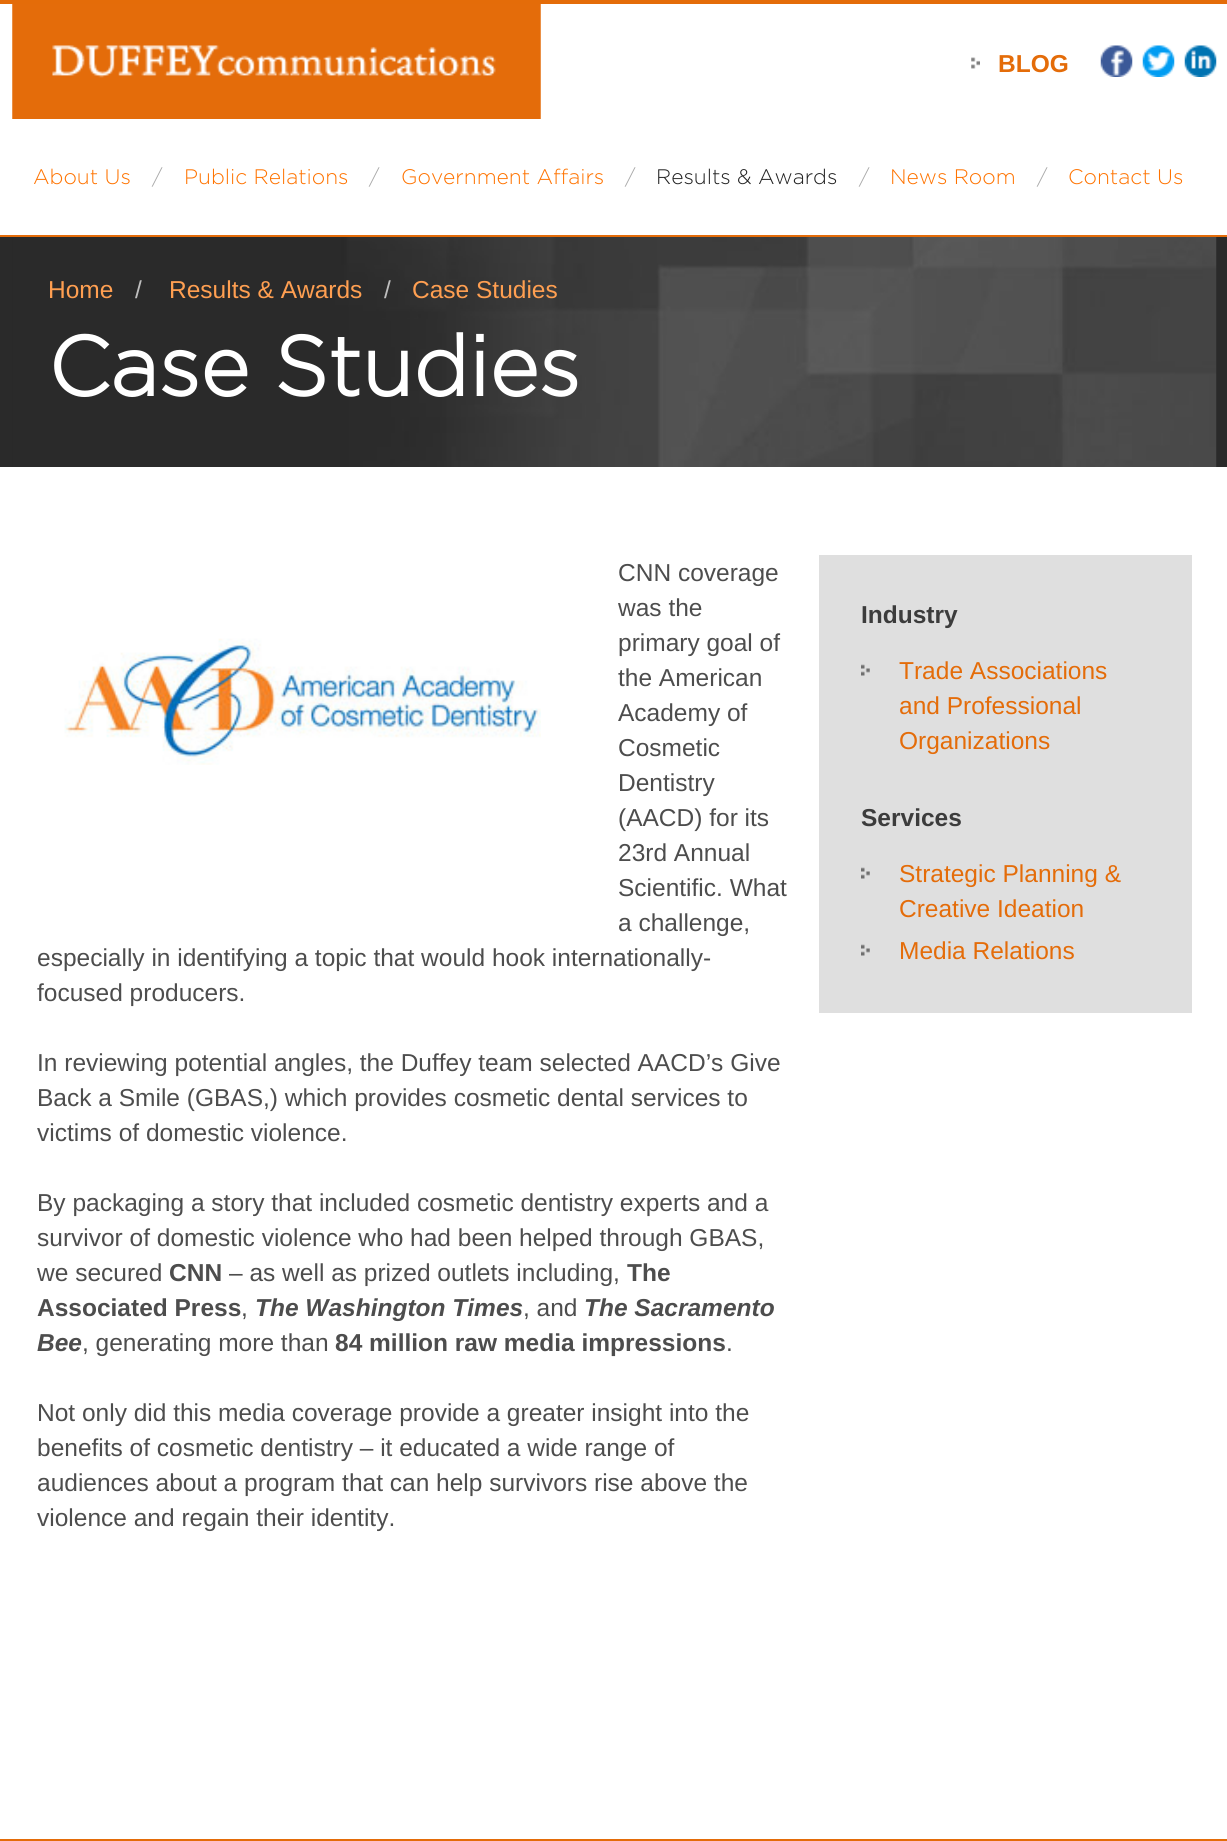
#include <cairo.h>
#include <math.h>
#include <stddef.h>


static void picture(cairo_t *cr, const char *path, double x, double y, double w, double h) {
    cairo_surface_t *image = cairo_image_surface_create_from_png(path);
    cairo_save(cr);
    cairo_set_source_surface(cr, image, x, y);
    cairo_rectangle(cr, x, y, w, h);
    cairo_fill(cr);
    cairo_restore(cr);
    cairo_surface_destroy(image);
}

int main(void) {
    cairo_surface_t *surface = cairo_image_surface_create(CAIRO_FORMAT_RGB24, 1227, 1841);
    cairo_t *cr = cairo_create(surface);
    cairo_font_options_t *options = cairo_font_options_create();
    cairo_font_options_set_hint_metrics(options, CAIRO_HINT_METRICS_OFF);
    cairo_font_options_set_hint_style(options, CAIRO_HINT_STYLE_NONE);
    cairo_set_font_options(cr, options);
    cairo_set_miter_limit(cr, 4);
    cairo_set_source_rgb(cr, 1, 1, 1);
    cairo_paint(cr);
    cairo_set_source_rgb(cr, 0.894, 0.424, 0.039);
    cairo_rectangle(cr, 0, 0, 1227, 4);
    cairo_fill(cr);
    cairo_rectangle(cr, 0, 235, 1227, 2);
    cairo_fill(cr);
    picture(cr, "img1.png", 12, 4, 529, 115);
    picture(cr, "img2.png", 971, 57, 9, 12);
    cairo_select_font_face(cr, "Liberation Sans", CAIRO_FONT_SLANT_NORMAL, CAIRO_FONT_WEIGHT_BOLD);
    cairo_set_font_size(cr, 24.5);
    cairo_move_to(cr, 998, 72);
    cairo_show_text(cr, "BLOG");
    picture(cr, "img3.png", 1100, 45, 33, 32);
    picture(cr, "img4.png", 1142, 45, 33, 32);
    picture(cr, "img5.png", 1184, 45, 33, 32);
    cairo_select_font_face(cr, "Gotham Light", CAIRO_FONT_SLANT_NORMAL, CAIRO_FONT_WEIGHT_NORMAL);
    cairo_set_font_size(cr, 21);
    cairo_set_source_rgb(cr, 1, 0.451, 0);
    cairo_move_to(cr, 33, 184);
    cairo_show_text(cr, "About Us");
    cairo_set_source_rgb(cr, 0.659, 0.659, 0.659);
    cairo_move_to(cr, 152, 184);
    cairo_show_text(cr, "/");
    cairo_set_source_rgb(cr, 1, 0.451, 0);
    cairo_move_to(cr, 184, 184);
    cairo_show_text(cr, "Public Relations");
    cairo_set_source_rgb(cr, 0.659, 0.659, 0.659);
    cairo_move_to(cr, 369, 184);
    cairo_show_text(cr, "/");
    cairo_set_source_rgb(cr, 1, 0.451, 0);
    cairo_move_to(cr, 401, 184);
    cairo_show_text(cr, "Government Affairs");
    cairo_set_source_rgb(cr, 0.659, 0.659, 0.659);
    cairo_move_to(cr, 625, 184);
    cairo_show_text(cr, "/");
    cairo_set_source_rgb(cr, 0.133, 0.133, 0.133);
    cairo_move_to(cr, 656, 184);
    cairo_show_text(cr, "Results & Awards");
    cairo_set_source_rgb(cr, 0.659, 0.659, 0.659);
    cairo_move_to(cr, 859, 184);
    cairo_show_text(cr, "/");
    cairo_set_source_rgb(cr, 1, 0.451, 0);
    cairo_move_to(cr, 890, 184);
    cairo_show_text(cr, "News Room");
    cairo_set_source_rgb(cr, 0.659, 0.659, 0.659);
    cairo_move_to(cr, 1037, 184);
    cairo_show_text(cr, "/");
    cairo_set_source_rgb(cr, 1, 0.451, 0);
    cairo_move_to(cr, 1068, 184);
    cairo_show_text(cr, "Contact Us");
    cairo_set_source_rgb(cr, 0.165, 0.165, 0.165);
    cairo_rectangle(cr, 0, 237, 1227, 230);
    cairo_fill(cr);
    picture(cr, "img6.png", 12, 237, 1205, 230);
    cairo_select_font_face(cr, "Liberation Sans", CAIRO_FONT_SLANT_NORMAL, CAIRO_FONT_WEIGHT_NORMAL);
    cairo_set_font_size(cr, 24.5);
    cairo_set_source_rgb(cr, 1, 0.624, 0.318);
    cairo_move_to(cr, 48, 298);
    cairo_show_text(cr, "Home");
    cairo_set_source_rgb(cr, 0.745, 0.745, 0.745);
    cairo_move_to(cr, 135, 298);
    cairo_show_text(cr, "/");
    cairo_set_source_rgb(cr, 1, 0.624, 0.318);
    cairo_move_to(cr, 169, 298);
    cairo_show_text(cr, "Results & Awards");
    cairo_set_source_rgb(cr, 0.745, 0.745, 0.745);
    cairo_move_to(cr, 384, 298);
    cairo_show_text(cr, "/");
    cairo_set_source_rgb(cr, 1, 0.624, 0.318);
    cairo_move_to(cr, 412, 298);
    cairo_show_text(cr, "Case Studies");
    cairo_select_font_face(cr, "Gotham", CAIRO_FONT_SLANT_NORMAL, CAIRO_FONT_WEIGHT_BOLD);
    cairo_set_font_size(cr, 84);
    cairo_set_source_rgb(cr, 1, 1, 1);
    cairo_move_to(cr, 48, 396);
    cairo_show_text(cr, "Case Studies");
    cairo_select_font_face(cr, "Liberation Sans", CAIRO_FONT_SLANT_NORMAL, CAIRO_FONT_WEIGHT_NORMAL);
    cairo_set_font_size(cr, 24.5);
    cairo_set_source_rgb(cr, 0.302, 0.302, 0.302);
    cairo_move_to(cr, 618, 581);
    cairo_show_text(cr, "CNN coverage");
    cairo_move_to(cr, 618, 616);
    cairo_show_text(cr, "was the");
    cairo_move_to(cr, 618, 651);
    cairo_show_text(cr, "primary goal of");
    cairo_move_to(cr, 618, 686);
    cairo_show_text(cr, "the American");
    cairo_move_to(cr, 618, 721);
    cairo_show_text(cr, "Academy of");
    cairo_move_to(cr, 618, 756);
    cairo_show_text(cr, "Cosmetic");
    cairo_move_to(cr, 618, 791);
    cairo_show_text(cr, "Dentistry");
    cairo_move_to(cr, 618, 826);
    cairo_show_text(cr, "(AACD) for its");
    cairo_move_to(cr, 618, 861);
    cairo_show_text(cr, "23rd Annual");
    cairo_move_to(cr, 618, 896);
    cairo_show_text(cr, "Scientific. What");
    cairo_move_to(cr, 618, 931);
    cairo_show_text(cr, "a challenge,");
    cairo_move_to(cr, 37, 966);
    cairo_show_text(cr, "especially in identifying a topic that would hook internationally-");
    cairo_move_to(cr, 37, 1001);
    cairo_show_text(cr, "focused producers.");
    cairo_move_to(cr, 37, 1071);
    cairo_show_text(cr, "In reviewing potential angles, the Duffey team selected AACD’s Give");
    cairo_move_to(cr, 37, 1106);
    cairo_show_text(cr, "Back a Smile (GBAS,) which provides cosmetic dental services to");
    cairo_move_to(cr, 37, 1141);
    cairo_show_text(cr, "victims of domestic violence.");
    cairo_move_to(cr, 37, 1211);
    cairo_show_text(cr, "By packaging a story that included cosmetic dentistry experts and a");
    cairo_move_to(cr, 37, 1246);
    cairo_show_text(cr, "survivor of domestic violence who had been helped through GBAS,");
    cairo_move_to(cr, 37, 1281);
    cairo_show_text(cr, "we secured");
    cairo_select_font_face(cr, "Liberation Sans", CAIRO_FONT_SLANT_NORMAL, CAIRO_FONT_WEIGHT_BOLD);
    cairo_move_to(cr, 169, 1281);
    cairo_show_text(cr, "CNN");
    cairo_select_font_face(cr, "Liberation Sans", CAIRO_FONT_SLANT_NORMAL, CAIRO_FONT_WEIGHT_NORMAL);
    cairo_move_to(cr, 229, 1281);
    cairo_show_text(cr, "– as well as prized outlets including,");
    cairo_select_font_face(cr, "Liberation Sans", CAIRO_FONT_SLANT_NORMAL, CAIRO_FONT_WEIGHT_BOLD);
    cairo_move_to(cr, 627, 1281);
    cairo_show_text(cr, "The");
    cairo_move_to(cr, 37, 1316);
    cairo_show_text(cr, "Associated Press");
    cairo_select_font_face(cr, "Liberation Sans", CAIRO_FONT_SLANT_NORMAL, CAIRO_FONT_WEIGHT_NORMAL);
    cairo_move_to(cr, 241, 1316);
    cairo_show_text(cr, ",");
    cairo_select_font_face(cr, "Liberation Sans", CAIRO_FONT_SLANT_ITALIC, CAIRO_FONT_WEIGHT_BOLD);
    cairo_move_to(cr, 255, 1316);
    cairo_show_text(cr, "The Washington Times");
    cairo_select_font_face(cr, "Liberation Sans", CAIRO_FONT_SLANT_NORMAL, CAIRO_FONT_WEIGHT_NORMAL);
    cairo_move_to(cr, 523, 1316);
    cairo_show_text(cr, ", and");
    cairo_select_font_face(cr, "Liberation Sans", CAIRO_FONT_SLANT_ITALIC, CAIRO_FONT_WEIGHT_BOLD);
    cairo_move_to(cr, 584, 1316);
    cairo_show_text(cr, "The Sacramento");
    cairo_move_to(cr, 37, 1351);
    cairo_show_text(cr, "Bee");
    cairo_select_font_face(cr, "Liberation Sans", CAIRO_FONT_SLANT_NORMAL, CAIRO_FONT_WEIGHT_NORMAL);
    cairo_move_to(cr, 82, 1351);
    cairo_show_text(cr, ", generating more than");
    cairo_select_font_face(cr, "Liberation Sans", CAIRO_FONT_SLANT_NORMAL, CAIRO_FONT_WEIGHT_BOLD);
    cairo_move_to(cr, 335, 1351);
    cairo_show_text(cr, "84 million raw media impressions");
    cairo_select_font_face(cr, "Liberation Sans", CAIRO_FONT_SLANT_NORMAL, CAIRO_FONT_WEIGHT_NORMAL);
    cairo_move_to(cr, 726, 1351);
    cairo_show_text(cr, ".");
    cairo_move_to(cr, 37, 1421);
    cairo_show_text(cr, "Not only did this media coverage provide a greater insight into the");
    cairo_move_to(cr, 37, 1456);
    cairo_show_text(cr, "benefits of cosmetic dentistry – it educated a wide range of");
    cairo_move_to(cr, 37, 1491);
    cairo_show_text(cr, "audiences about a program that can help survivors rise above the");
    cairo_move_to(cr, 37, 1526);
    cairo_show_text(cr, "violence and regain their identity.");
    picture(cr, "img7.png", 64, 638, 477, 127);
    cairo_set_source_rgb(cr, 0.875, 0.875, 0.875);
    cairo_rectangle(cr, 819, 555, 373, 458);
    cairo_fill(cr);
    cairo_select_font_face(cr, "Liberation Sans", CAIRO_FONT_SLANT_NORMAL, CAIRO_FONT_WEIGHT_BOLD);
    cairo_set_source_rgb(cr, 0.235, 0.235, 0.235);
    cairo_move_to(cr, 861, 623);
    cairo_show_text(cr, "Industry");
    picture(cr, "img8.png", 861, 664, 9, 12);
    cairo_select_font_face(cr, "Liberation Sans", CAIRO_FONT_SLANT_NORMAL, CAIRO_FONT_WEIGHT_NORMAL);
    cairo_set_source_rgb(cr, 0.894, 0.424, 0.039);
    cairo_move_to(cr, 899, 679);
    cairo_show_text(cr, "Trade Associations");
    cairo_move_to(cr, 899, 714);
    cairo_show_text(cr, "and Professional");
    cairo_move_to(cr, 899, 749);
    cairo_show_text(cr, "Organizations");
    cairo_select_font_face(cr, "Liberation Sans", CAIRO_FONT_SLANT_NORMAL, CAIRO_FONT_WEIGHT_BOLD);
    cairo_set_source_rgb(cr, 0.235, 0.235, 0.235);
    cairo_move_to(cr, 861, 826);
    cairo_show_text(cr, "Services");
    picture(cr, "img8.png", 861, 867, 9, 12);
    cairo_select_font_face(cr, "Liberation Sans", CAIRO_FONT_SLANT_NORMAL, CAIRO_FONT_WEIGHT_NORMAL);
    cairo_set_source_rgb(cr, 0.894, 0.424, 0.039);
    cairo_move_to(cr, 899, 882);
    cairo_show_text(cr, "Strategic Planning &");
    cairo_move_to(cr, 899, 917);
    cairo_show_text(cr, "Creative Ideation");
    picture(cr, "img8.png", 861, 944, 9, 12);
    cairo_move_to(cr, 899, 959);
    cairo_show_text(cr, "Media Relations");
    cairo_rectangle(cr, 0, 1839, 1227, 2);
    cairo_fill(cr);
    cairo_surface_write_to_png(surface, "page.png");
    cairo_font_options_destroy(options);
    cairo_destroy(cr);
    cairo_surface_destroy(surface);
    return 0;
}
